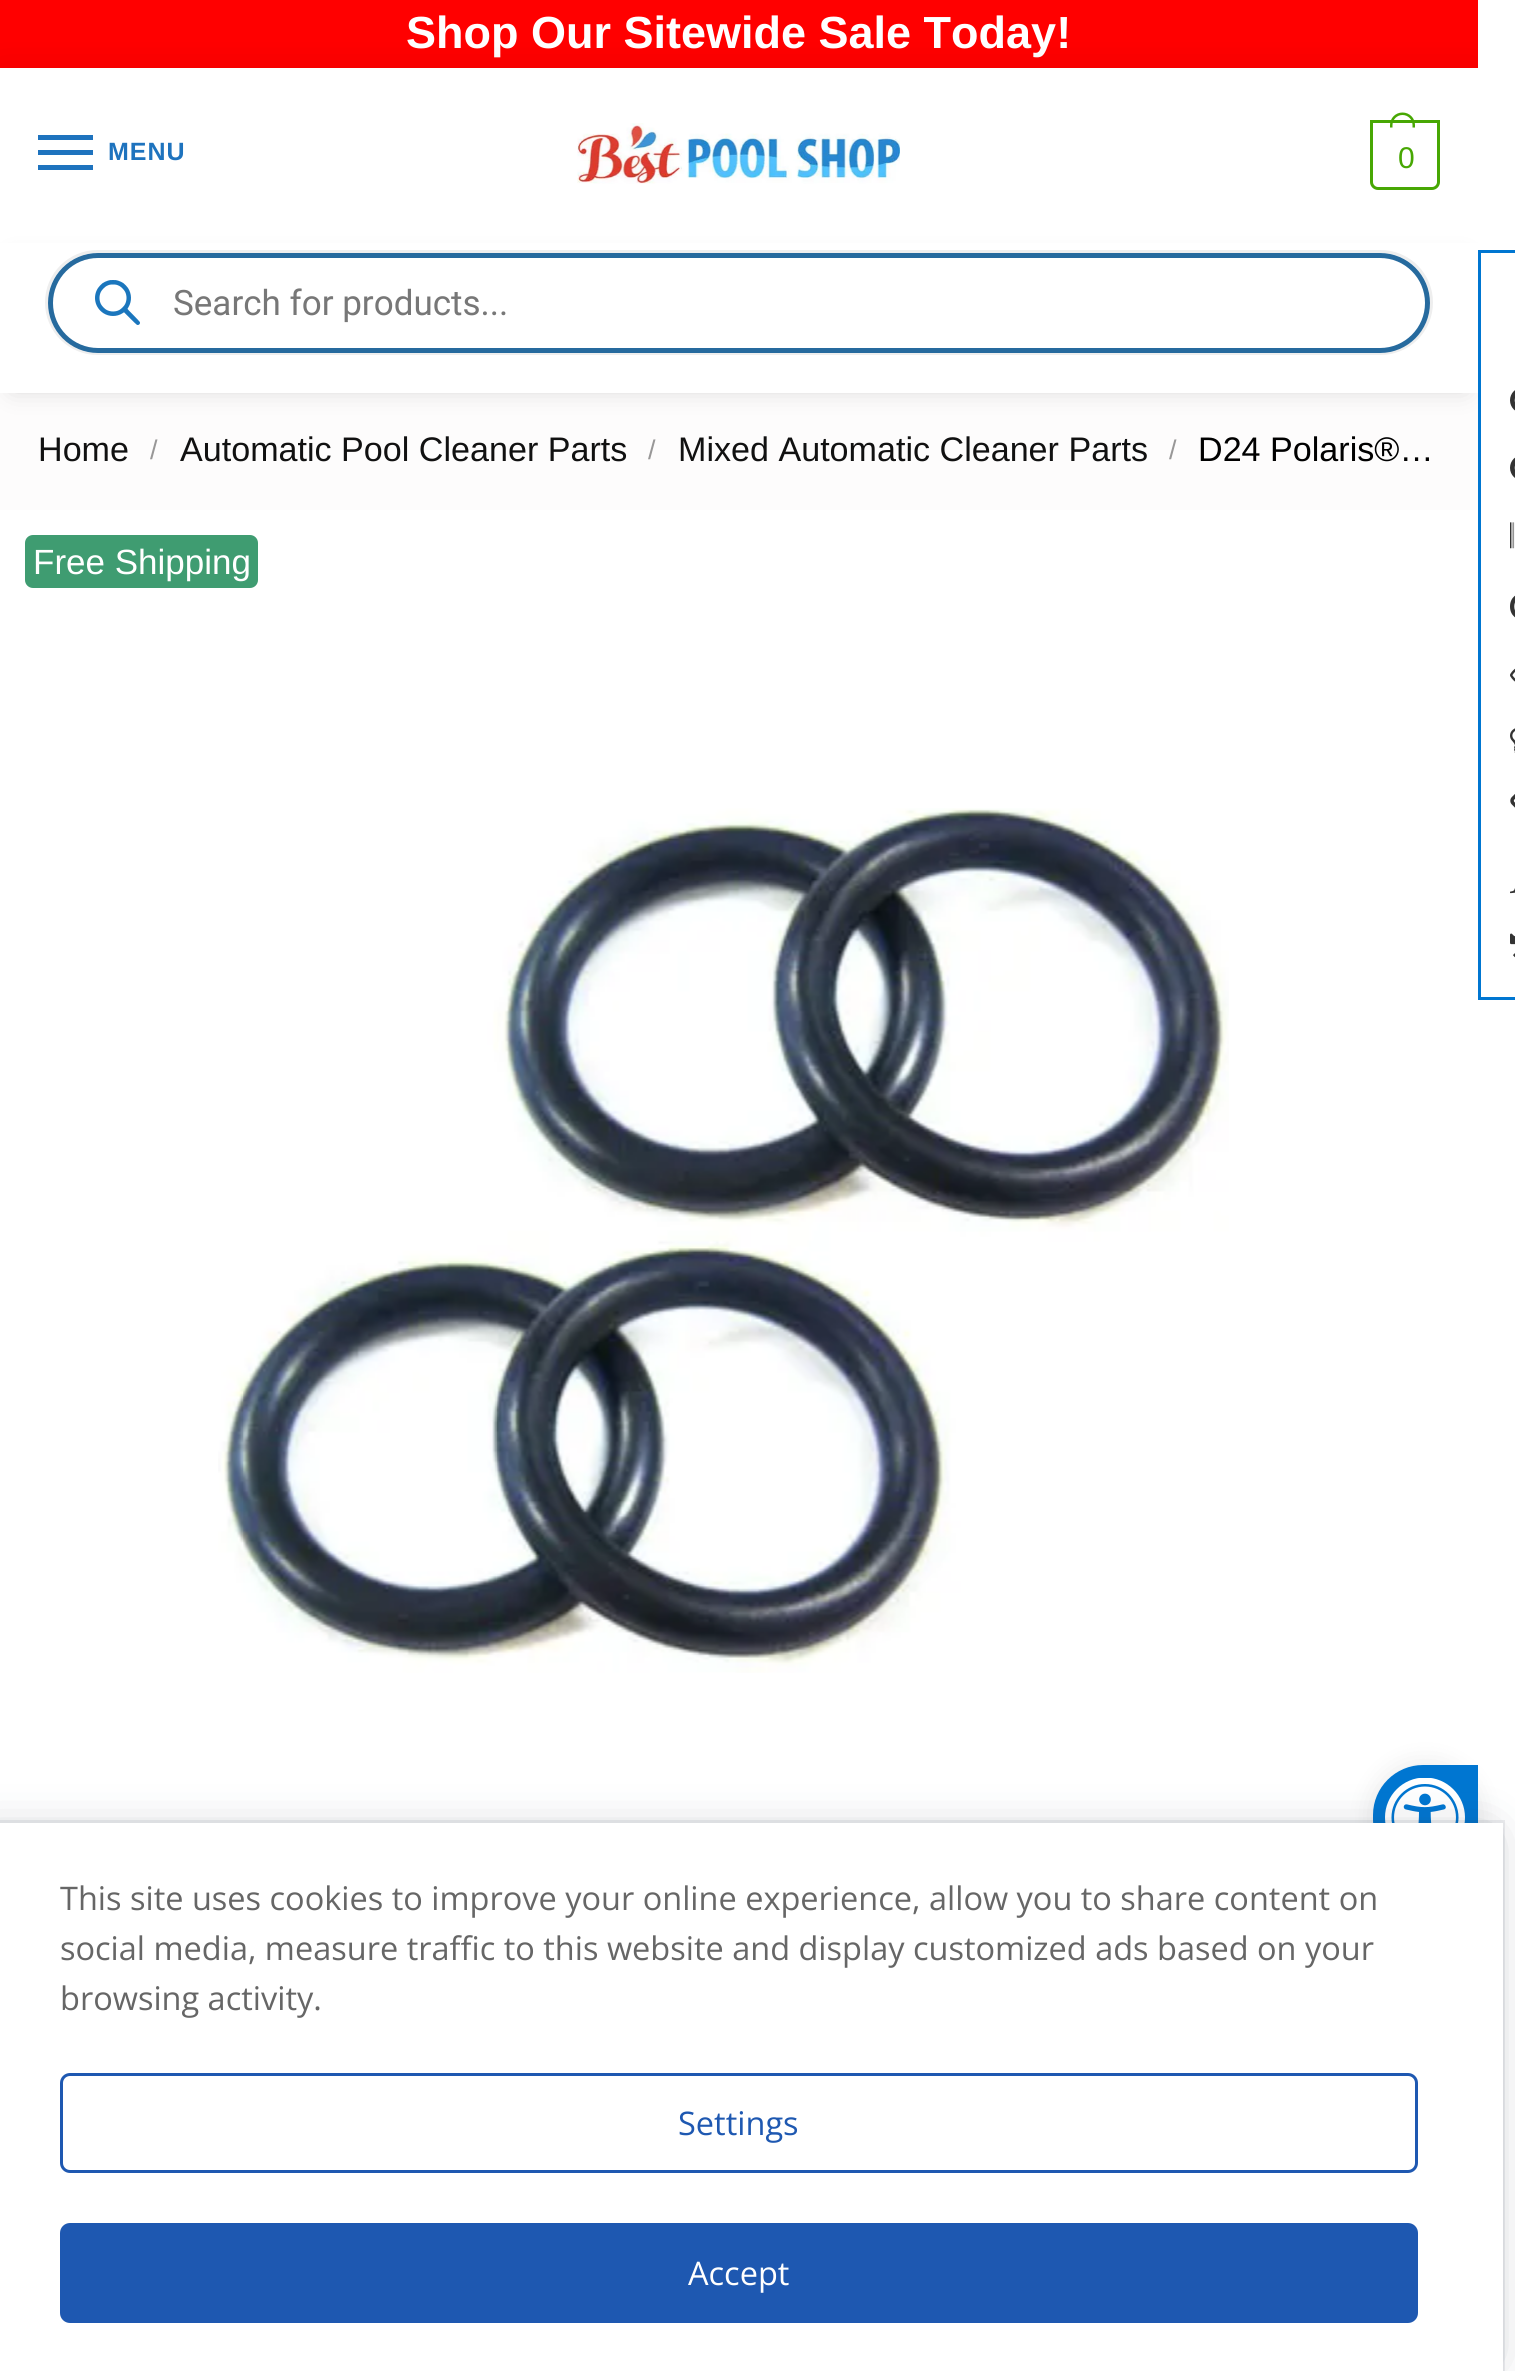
#include <cairo.h>
#include <math.h>
#include <stddef.h>


static void spaced_text(cairo_t *cr, double x, double y, const char *s, double letter, double word) {
    cairo_move_to(cr, x, y);
    while (*s) {
        char ch[5] = {0};
        int n = 0;
        do ch[n++] = *s++; while ((*s & 0xC0) == 0x80);
        cairo_show_text(cr, ch);
        cairo_rel_move_to(cr, letter + word * (*ch == ' '), 0);
    }
}

static void round_rect(cairo_t *cr, double x, double y, double w, double h, double r) {
    cairo_new_sub_path(cr);
    cairo_arc(cr, x + w - r, y + h - r, r, 0, M_PI / 2);
    cairo_arc(cr, x + r, y + h - r, r, M_PI / 2, M_PI);
    cairo_arc(cr, x + r, y + r, r, M_PI, 1.5 * M_PI);
    cairo_arc(cr, x + w - r, y + r, r, 1.5 * M_PI, 2 * M_PI);
    cairo_close_path(cr);
}

static void shadow(cairo_t *cr, double x, double y, double w, double h, double r, double blur, double alpha) {
    cairo_push_group_with_content(cr, CAIRO_CONTENT_ALPHA);
    cairo_set_operator(cr, CAIRO_OPERATOR_SOURCE);
    for (int i = 15; i >= -15 && fmin(w, h) + blur * i / 3 > 0; i -= 2) {
        double e = blur * i / 6;
        cairo_set_source_rgba(cr, 0, 0, 0, alpha * erfc((i - 1) / 8.5) / 2);
        round_rect(cr, x - e, y - e, w + 2 * e, h + 2 * e, fmax(0, fmin(r + e + blur * .6, fmin(w, h) / 2 + e)));
        cairo_fill(cr);
    }
    cairo_pattern_t *soft = cairo_pop_group(cr);
    cairo_mask(cr, soft);
    cairo_pattern_destroy(soft);
}

static void picture(cairo_t *cr, const char *path, double x, double y, double w, double h) {
    cairo_surface_t *image = cairo_image_surface_create_from_png(path);
    cairo_save(cr);
    cairo_set_source_surface(cr, image, x, y);
    cairo_rectangle(cr, x, y, w, h);
    cairo_fill(cr);
    cairo_restore(cr);
    cairo_surface_destroy(image);
}

int main(void) {
    cairo_surface_t *surface = cairo_image_surface_create(CAIRO_FORMAT_RGB24, 1515, 2371);
    cairo_t *cr = cairo_create(surface);
    cairo_font_options_t *options = cairo_font_options_create();
    cairo_font_options_set_hint_metrics(options, CAIRO_HINT_METRICS_OFF);
    cairo_font_options_set_hint_style(options, CAIRO_HINT_STYLE_NONE);
    cairo_set_font_options(cr, options);
    cairo_set_miter_limit(cr, 4);
    cairo_set_source_rgb(cr, 1, 0, 0);
    cairo_paint(cr);
    cairo_select_font_face(cr, "Liberation Sans", CAIRO_FONT_SLANT_NORMAL, CAIRO_FONT_WEIGHT_BOLD);
    cairo_set_font_size(cr, 45);
    cairo_set_source_rgb(cr, 1, 1, 1);
    cairo_move_to(cr, 406, 48);
    cairo_show_text(cr, "Shop Our Sitewide Sale Today!");
    cairo_set_source_rgb(cr, 0, 0, 0);
    shadow(cr, 0, 70, 1478, 175, 0, 19, 0.08);
    cairo_set_source_rgb(cr, 1, 1, 1);
    cairo_rectangle(cr, 0, 68, 1478, 175);
    cairo_fill(cr);
    cairo_set_source_rgb(cr, 0.118, 0.451, 0.745);
    cairo_rectangle(cr, 38, 135, 55, 5);
    cairo_fill(cr);
    cairo_rectangle(cr, 38, 150, 55, 5);
    cairo_fill(cr);
    cairo_set_font_size(cr, 25);
    spaced_text(cr, 108, 160, "MENU", 1, 0);
    cairo_rectangle(cr, 38, 165, 55, 5);
    cairo_fill(cr);
    picture(cr, "img1.png", 577, 123, 323, 61);
    cairo_new_path(cr);
    cairo_move_to(cr, 1371.5, 121.5);
    cairo_line_to(cr, 1438.5, 121.5);
    cairo_line_to(cr, 1438.5, 182);
    cairo_curve_to(cr, 1438.5, 185.5, 1435.5, 188.5, 1432, 188.5);
    cairo_line_to(cr, 1378, 188.5);
    cairo_curve_to(cr, 1374.5, 188.5, 1371.5, 185.5, 1371.5, 182);
    cairo_close_path(cr);
    cairo_set_source_rgb(cr, 0.278, 0.655, 0.012);
    cairo_set_line_width(cr, 3);
    cairo_stroke(cr);
    cairo_set_fill_rule(cr, CAIRO_FILL_RULE_EVEN_ODD);
    cairo_new_path(cr);
    cairo_move_to(cr, 1402.5, 112.5);
    cairo_curve_to(cr, 1409.5, 112.5, 1415, 118, 1415, 125);
    cairo_line_to(cr, 1415, 127.5);
    cairo_line_to(cr, 1390, 127.5);
    cairo_line_to(cr, 1390, 125);
    cairo_curve_to(cr, 1390, 118, 1395.5, 112.5, 1402.5, 112.5);
    cairo_close_path(cr);
    cairo_move_to(cr, 1402.5, 115);
    cairo_curve_to(cr, 1408, 115, 1412.5, 119.5, 1412.5, 125);
    cairo_line_to(cr, 1412.5, 127.5);
    cairo_line_to(cr, 1392.5, 127.5);
    cairo_line_to(cr, 1392.5, 125);
    cairo_curve_to(cr, 1392.5, 119.5, 1397, 115, 1402.5, 115);
    cairo_close_path(cr);
    cairo_fill(cr);
    cairo_select_font_face(cr, "Liberation Sans", CAIRO_FONT_SLANT_NORMAL, CAIRO_FONT_WEIGHT_NORMAL);
    cairo_set_font_size(cr, 30);
    spaced_text(cr, 1398, 168, "0", -2, 0);
    cairo_set_source_rgb(cr, 0.992, 0.988, 0.988);
    cairo_rectangle(cr, 0, 393, 1478, 117);
    cairo_fill(cr);
    cairo_set_source_rgb(cr, 0, 0, 0);
    shadow(cr, 13, 263, 1452, 125, 0, 12.5, 0.18);
    cairo_set_source_rgb(cr, 1, 1, 1);
    cairo_rectangle(cr, 0, 243, 1478, 150);
    cairo_fill(cr);
    round_rect(cr, 46.5, 251.5, 1385, 102, 51);
    cairo_set_source_rgb(cr, 0.933, 0.933, 0.933);
    cairo_stroke(cr);
    cairo_set_source_rgb(cr, 1, 1, 1);
    round_rect(cr, 50.5, 255.5, 1377, 95, 47.5);
    cairo_fill_preserve(cr);
    cairo_set_source_rgb(cr, 0.149, 0.416, 0.62);
    cairo_set_line_width(cr, 5);
    cairo_stroke(cr);
    picture(cr, "img2.png", 95, 280, 45, 45);
    cairo_select_font_face(cr, "Roboto", CAIRO_FONT_SLANT_NORMAL, CAIRO_FONT_WEIGHT_NORMAL);
    cairo_set_font_size(cr, 35);
    cairo_set_source_rgb(cr, 0.467, 0.467, 0.467);
    cairo_move_to(cr, 173, 315);
    cairo_show_text(cr, "Search for products...");
    cairo_set_source_rgb(cr, 1, 1, 1);
    cairo_rectangle(cr, 1478, 0, 37, 2371);
    cairo_fill(cr);
    cairo_select_font_face(cr, "Liberation Sans", CAIRO_FONT_SLANT_NORMAL, CAIRO_FONT_WEIGHT_NORMAL);
    cairo_set_font_size(cr, 34.1);
    cairo_set_source_rgb(cr, 0.067, 0.067, 0.067);
    cairo_move_to(cr, 38, 461);
    cairo_show_text(cr, "Home");
    cairo_set_font_size(cr, 27);
    cairo_set_source_rgb(cr, 0.596, 0.592, 0.592);
    cairo_move_to(cr, 150, 459);
    cairo_show_text(cr, "/");
    cairo_set_font_size(cr, 34.1);
    cairo_set_source_rgb(cr, 0.067, 0.067, 0.067);
    cairo_move_to(cr, 180, 461);
    cairo_show_text(cr, "Automatic Pool Cleaner Parts");
    cairo_set_font_size(cr, 27);
    cairo_set_source_rgb(cr, 0.596, 0.592, 0.592);
    cairo_move_to(cr, 648, 459);
    cairo_show_text(cr, "/");
    cairo_set_font_size(cr, 34.1);
    cairo_set_source_rgb(cr, 0.067, 0.067, 0.067);
    cairo_move_to(cr, 678, 461);
    cairo_show_text(cr, "Mixed Automatic Cleaner Parts");
    cairo_set_font_size(cr, 27);
    cairo_set_source_rgb(cr, 0.596, 0.592, 0.592);
    cairo_move_to(cr, 1169, 459);
    cairo_show_text(cr, "/");
    cairo_set_font_size(cr, 34.1);
    cairo_set_source_rgb(cr, 0, 0, 0);
    cairo_move_to(cr, 1198, 461);
    cairo_show_text(cr, "D24 Polaris®…");
    cairo_set_source_rgb(cr, 1, 1, 1);
    cairo_rectangle(cr, 0, 510, 1478, 1313);
    cairo_fill(cr);
    picture(cr, "img3.png", 218, 808, 1011, 865);
    cairo_set_source_rgb(cr, 0.247, 0.612, 0.443);
    round_rect(cr, 25, 535, 233, 53, 8);
    cairo_fill(cr);
    cairo_set_font_size(cr, 35);
    cairo_set_source_rgb(cr, 1, 1, 1);
    cairo_move_to(cr, 33, 574);
    cairo_show_text(cr, "Free Shipping");
    cairo_rectangle(cr, 1479.5, 251.5, 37, 747);
    cairo_set_source_rgb(cr, 0, 0.463, 0.82);
    cairo_set_line_width(cr, 3);
    cairo_stroke(cr);
    picture(cr, "img4.png", 1510, 390, 5, 21);
    picture(cr, "img5.png", 1510, 457, 5, 21);
    picture(cr, "img6.png", 1510, 522, 5, 27);
    cairo_set_source_rgb(cr, 0.2, 0.2, 0.2);
    cairo_set_fill_rule(cr, CAIRO_FILL_RULE_WINDING);
    cairo_new_path(cr);
    cairo_move_to(cr, 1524, 616.5);
    cairo_line_to(cr, 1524, 596.5);
    cairo_curve_to(cr, 1511, 596.5, 1511, 616.5, 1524, 616.5);
    cairo_close_path(cr);
    cairo_move_to(cr, 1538.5, 606.5);
    cairo_curve_to(cr, 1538.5, 625, 1510, 625, 1510, 606.5);
    cairo_curve_to(cr, 1510, 588, 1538.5, 588, 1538.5, 606.5);
    cairo_close_path(cr);
    cairo_fill(cr);
    picture(cr, "img7.png", 1510, 668, 5, 14);
    picture(cr, "img8.png", 1510, 728, 5, 25);
    picture(cr, "img9.png", 1510, 794, 5, 14);
    picture(cr, "img10.png", 1510, 888, 5, 6);
    picture(cr, "img11.png", 1510, 933, 5, 25);
    cairo_set_source_rgb(cr, 0, 0, 0);
    shadow(cr, 1373, 1765, 105, 105, 50, 12.5, 0.1);
    cairo_set_source_rgb(cr, 0, 0.463, 0.82);
    cairo_new_path(cr);
    cairo_move_to(cr, 1423, 1765);
    cairo_line_to(cr, 1478, 1765);
    cairo_line_to(cr, 1478, 1870);
    cairo_line_to(cr, 1423, 1870);
    cairo_curve_to(cr, 1395.5, 1870, 1373, 1847.5, 1373, 1820);
    cairo_line_to(cr, 1373, 1815);
    cairo_curve_to(cr, 1373, 1787.5, 1395.5, 1765, 1423, 1765);
    cairo_close_path(cr);
    cairo_fill(cr);
    picture(cr, "img12.png", 1385, 1778, 80, 45);
    cairo_set_source_rgb(cr, 0.141, 0.184, 0.259);
    shadow(cr, -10, 1838, 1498, 520, 0, 25, 0.31);
    shadow(cr, -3, 1828, 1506, 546, 0, 1, 0.08);
    cairo_rectangle(cr, -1.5, 1821.5, 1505, 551);
    cairo_set_source_rgba(cr, 0.141, 0.184, 0.259, 0.08);
    cairo_stroke(cr);
    cairo_set_source_rgb(cr, 1, 1, 1);
    cairo_rectangle(cr, 0, 1823, 1503, 548);
    cairo_fill(cr);
    cairo_select_font_face(cr, "Open Sans", CAIRO_FONT_SLANT_NORMAL, CAIRO_FONT_WEIGHT_NORMAL);
    cairo_set_font_size(cr, 32.5);
    cairo_set_source_rgb(cr, 0.4, 0.4, 0.4);
    cairo_move_to(cr, 60, 1910);
    cairo_show_text(cr, "This site uses cookies to improve your online experience, allow you to share content on");
    cairo_move_to(cr, 60, 1960);
    cairo_show_text(cr, "social media, measure traffic to this website and display customized ads based on your");
    cairo_move_to(cr, 60, 2010);
    cairo_show_text(cr, "browsing activity.");
    round_rect(cr, 61.5, 2074.5, 1355, 97, 8.5);
    cairo_set_source_rgb(cr, 0.118, 0.345, 0.694);
    cairo_stroke(cr);
    cairo_move_to(cr, 678, 2135);
    cairo_show_text(cr, "Settings");
    round_rect(cr, 61.5, 2224.5, 1355, 97, 8.5);
    cairo_fill_preserve(cr);
    cairo_stroke(cr);
    cairo_set_source_rgb(cr, 1, 1, 1);
    cairo_move_to(cr, 688, 2285);
    cairo_show_text(cr, "Accept");
    cairo_surface_write_to_png(surface, "page.png");
    cairo_font_options_destroy(options);
    cairo_destroy(cr);
    cairo_surface_destroy(surface);
    return 0;
}
